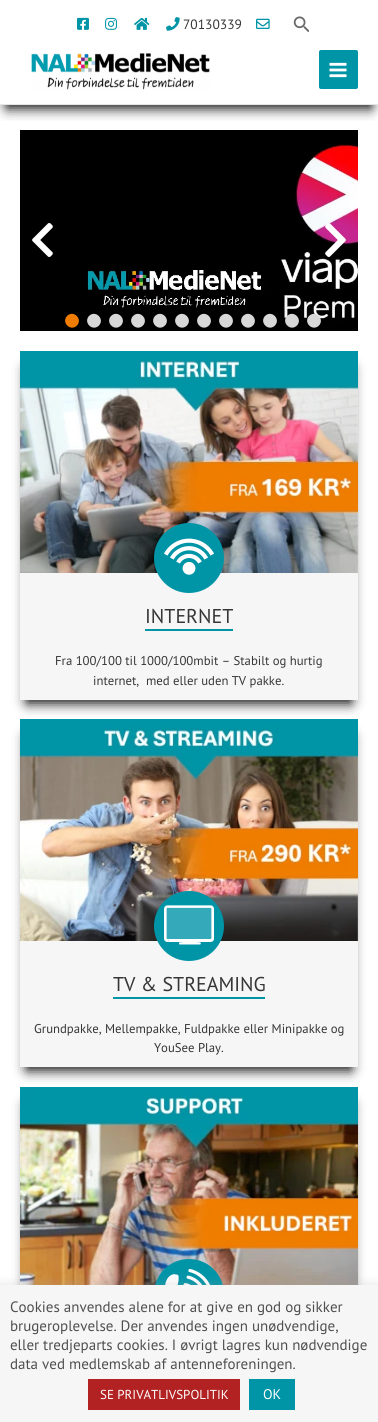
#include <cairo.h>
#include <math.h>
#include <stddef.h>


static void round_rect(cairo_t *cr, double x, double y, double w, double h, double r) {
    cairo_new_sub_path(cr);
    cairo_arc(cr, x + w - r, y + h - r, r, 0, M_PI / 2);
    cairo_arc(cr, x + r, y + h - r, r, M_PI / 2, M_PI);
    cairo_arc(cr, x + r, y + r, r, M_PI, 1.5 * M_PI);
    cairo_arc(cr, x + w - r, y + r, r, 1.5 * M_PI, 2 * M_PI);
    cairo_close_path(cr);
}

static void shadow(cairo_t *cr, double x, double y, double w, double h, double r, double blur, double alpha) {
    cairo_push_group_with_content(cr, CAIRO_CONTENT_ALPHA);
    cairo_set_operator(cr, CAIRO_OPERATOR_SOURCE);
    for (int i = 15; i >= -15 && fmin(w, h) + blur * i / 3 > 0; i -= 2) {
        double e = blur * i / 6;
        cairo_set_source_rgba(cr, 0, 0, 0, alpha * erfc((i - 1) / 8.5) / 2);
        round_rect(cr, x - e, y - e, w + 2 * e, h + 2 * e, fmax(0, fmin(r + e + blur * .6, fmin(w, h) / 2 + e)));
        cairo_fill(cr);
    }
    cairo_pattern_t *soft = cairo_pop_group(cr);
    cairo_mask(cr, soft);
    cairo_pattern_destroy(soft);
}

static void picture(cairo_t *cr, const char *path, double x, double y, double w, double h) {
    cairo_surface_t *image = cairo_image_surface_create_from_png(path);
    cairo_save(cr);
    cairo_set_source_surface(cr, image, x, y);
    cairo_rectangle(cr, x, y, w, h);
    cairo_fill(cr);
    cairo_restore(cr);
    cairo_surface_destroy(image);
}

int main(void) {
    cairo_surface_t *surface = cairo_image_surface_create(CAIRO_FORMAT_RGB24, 378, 1422);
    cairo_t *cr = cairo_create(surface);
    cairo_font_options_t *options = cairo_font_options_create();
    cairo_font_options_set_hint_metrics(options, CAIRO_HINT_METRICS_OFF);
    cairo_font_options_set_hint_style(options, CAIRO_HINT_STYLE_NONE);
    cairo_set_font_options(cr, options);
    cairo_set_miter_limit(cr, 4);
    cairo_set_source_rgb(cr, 1, 1, 1);
    cairo_paint(cr);
    cairo_save(cr);
    cairo_rectangle(cr, 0, 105, 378, 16);
    cairo_clip(cr);
    cairo_set_source_rgb(cr, 0, 0, 0);
    shadow(cr, 7, 17, 364, 91, 0, 6.5, 1);
    cairo_restore(cr);
    picture(cr, "img1.png", 77, 17, 12, 13);
    picture(cr, "img2.png", 105, 17, 12, 13);
    picture(cr, "img3.png", 134, 17, 16, 13);
    picture(cr, "img4.png", 166, 17, 14, 14);
    cairo_select_font_face(cr, "PT Sans", CAIRO_FONT_SLANT_NORMAL, CAIRO_FONT_WEIGHT_NORMAL);
    cairo_set_font_size(cr, 13.5);
    cairo_set_source_rgb(cr, 0.212, 0.212, 0.212);
    cairo_move_to(cr, 183, 29);
    cairo_show_text(cr, "70130339");
    picture(cr, "img5.png", 256, 18, 14, 11);
    picture(cr, "img6.png", 293, 16, 16, 17);
    cairo_set_source_rgb(cr, 0.898, 0.898, 0.898);
    cairo_rectangle(cr, 0, 104, 378, 1);
    cairo_fill(cr);
    picture(cr, "img7.png", 31, 53, 179, 37);
    cairo_set_source_rgb(cr, 0, 0.58, 0.655);
    round_rect(cr, 319, 50, 39, 39, 2);
    cairo_fill(cr);
    picture(cr, "img8.png", 329, 62, 18, 16);
    picture(cr, "img9.png", 20, 130, 338, 201);
    picture(cr, "img10.png", 32, 223, 21, 34);
    picture(cr, "img11.png", 325, 223, 21, 34);
    cairo_set_source_rgb(cr, 0.941, 0.49, 0);
    cairo_new_path(cr);
    cairo_move_to(cr, 67, 316);
    cairo_curve_to(cr, 73.5, 309.5, 83, 319, 77, 325.5);
    cairo_curve_to(cr, 70.5, 332, 61, 322.5, 67, 316);
    cairo_close_path(cr);
    cairo_fill(cr);
    cairo_set_source_rgb(cr, 0.847, 0.847, 0.847);
    cairo_new_path(cr);
    cairo_move_to(cr, 89, 316);
    cairo_curve_to(cr, 95.5, 309.5, 105, 319, 99, 325.5);
    cairo_curve_to(cr, 92.5, 332, 83, 322.5, 89, 316);
    cairo_close_path(cr);
    cairo_move_to(cr, 111, 316);
    cairo_curve_to(cr, 117.5, 309.5, 127, 319, 121, 325.5);
    cairo_curve_to(cr, 114.5, 332, 105, 322.5, 111, 316);
    cairo_close_path(cr);
    cairo_move_to(cr, 133, 316);
    cairo_curve_to(cr, 139.5, 309.5, 149, 319, 143, 325.5);
    cairo_curve_to(cr, 136.5, 332, 127, 322.5, 133, 316);
    cairo_close_path(cr);
    cairo_fill(cr);
    cairo_new_path(cr);
    cairo_move_to(cr, 155, 316);
    cairo_curve_to(cr, 161.5, 309.5, 171, 319, 165, 325.5);
    cairo_curve_to(cr, 158.5, 332, 149, 322.5, 155, 316);
    cairo_close_path(cr);
    cairo_move_to(cr, 177, 316);
    cairo_curve_to(cr, 183.5, 309.5, 193, 319, 187, 325.5);
    cairo_curve_to(cr, 180.5, 332, 171, 322.5, 177, 316);
    cairo_close_path(cr);
    cairo_move_to(cr, 199, 316);
    cairo_curve_to(cr, 205.5, 309.5, 215, 319, 209, 325.5);
    cairo_curve_to(cr, 202.5, 332, 193, 322.5, 199, 316);
    cairo_close_path(cr);
    cairo_fill(cr);
    cairo_new_path(cr);
    cairo_move_to(cr, 221, 316);
    cairo_curve_to(cr, 227.5, 309.5, 237, 319, 231, 325.5);
    cairo_curve_to(cr, 224.5, 332, 215, 322.5, 221, 316);
    cairo_close_path(cr);
    cairo_move_to(cr, 243, 316);
    cairo_curve_to(cr, 249.5, 309.5, 259, 319, 253, 325.5);
    cairo_curve_to(cr, 246.5, 332, 237, 322.5, 243, 316);
    cairo_close_path(cr);
    cairo_move_to(cr, 265, 316);
    cairo_curve_to(cr, 271.5, 309.5, 281, 319, 275, 325.5);
    cairo_curve_to(cr, 268.5, 332, 259, 322.5, 265, 316);
    cairo_close_path(cr);
    cairo_fill(cr);
    cairo_new_path(cr);
    cairo_move_to(cr, 287, 316);
    cairo_curve_to(cr, 293.5, 309.5, 303, 319, 297, 325.5);
    cairo_curve_to(cr, 290.5, 332, 281, 322.5, 287, 316);
    cairo_close_path(cr);
    cairo_move_to(cr, 309, 316);
    cairo_curve_to(cr, 315.5, 309.5, 325, 319, 319, 325.5);
    cairo_curve_to(cr, 312.5, 332, 303, 322.5, 309, 316);
    cairo_close_path(cr);
    cairo_fill(cr);
    cairo_set_source_rgb(cr, 0, 0, 0);
    shadow(cr, 27, 368, 324, 335, 0, 6.5, 1);
    cairo_set_source_rgb(cr, 0.961, 0.961, 0.961);
    cairo_rectangle(cr, 20, 573, 338, 127);
    cairo_fill(cr);
    picture(cr, "img12.png", 20, 351, 338, 222);
    cairo_set_source_rgb(cr, 0, 0.58, 0.655);
    cairo_arc(cr, 189, 558, 35, 0, 2 * M_PI);
    cairo_fill(cr);
    picture(cr, "img13.png", 164, 538, 50, 37);
    cairo_rectangle(cr, 145, 629, 88, 2);
    cairo_fill(cr);
    cairo_set_font_size(cr, 20);
    cairo_set_source_rgb(cr, 0.212, 0.212, 0.212);
    cairo_move_to(cr, 145, 623);
    cairo_show_text(cr, "INTERNET");
    cairo_set_font_size(cr, 12.75);
    cairo_move_to(cr, 55, 665);
    cairo_show_text(cr, "Fra 100/100 til 1000/100mbit – Stabilt og hurtig");
    cairo_move_to(cr, 93, 685);
    cairo_show_text(cr, "internet,  med eller uden TV pakke.");
    cairo_set_source_rgb(cr, 0, 0, 0);
    shadow(cr, 27, 736, 324, 334, 0, 6.5, 1);
    cairo_set_source_rgb(cr, 0.961, 0.961, 0.961);
    cairo_rectangle(cr, 20, 941, 338, 126);
    cairo_fill(cr);
    picture(cr, "img14.png", 20, 719, 338, 222);
    cairo_set_source_rgb(cr, 0, 0.58, 0.655);
    cairo_arc(cr, 189, 926, 35, 0, 2 * M_PI);
    cairo_fill(cr);
    picture(cr, "img15.png", 164, 905, 50, 40);
    cairo_rectangle(cr, 113, 997, 152, 2);
    cairo_fill(cr);
    cairo_set_font_size(cr, 20);
    cairo_set_source_rgb(cr, 0.212, 0.212, 0.212);
    cairo_move_to(cr, 113, 991);
    cairo_show_text(cr, "TV & STREAMING");
    cairo_set_font_size(cr, 12.75);
    cairo_move_to(cr, 34, 1033);
    cairo_show_text(cr, "Grundpakke, Mellempakke, Fuldpakke eller Minipakke og");
    cairo_move_to(cr, 154, 1052);
    cairo_show_text(cr, "YouSee Play.");
    cairo_set_source_rgb(cr, 0, 0, 0);
    shadow(cr, 27, 1104, 324, 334, 0, 6.5, 1);
    picture(cr, "img16.png", 20, 1087, 338, 198);
    cairo_set_source_rgb(cr, 0, 0.58, 0.655);
    cairo_arc(cr, 189, 1294, 35, 0, 2 * M_PI);
    cairo_fill(cr);
    picture(cr, "img17.png", 165, 1269, 45, 16);
    cairo_set_source_rgb(cr, 0.675, 0.671, 0.671);
    shadow(cr, 0, 1284, 378, 137, 0, 5, 0.3);
    cairo_set_source_rgb(cr, 0.961, 0.961, 0.961);
    cairo_rectangle(cr, 0, 1285, 378, 137);
    cairo_fill(cr);
    cairo_set_font_size(cr, 15);
    cairo_set_source_rgb(cr, 0.31, 0.31, 0.31);
    cairo_move_to(cr, 10, 1312);
    cairo_show_text(cr, "Cookies anvendes alene for at give en god og sikker");
    cairo_move_to(cr, 10, 1331);
    cairo_show_text(cr, "brugeroplevelse. Der anvendes ingen unødvendige,");
    cairo_move_to(cr, 10, 1350);
    cairo_show_text(cr, "eller tredjeparts cookies. I øvrigt lagres kun nødvendige");
    cairo_move_to(cr, 10, 1369);
    cairo_show_text(cr, "data ved medlemskab af antenneforeningen.");
    cairo_set_source_rgb(cr, 0.698, 0.133, 0.133);
    cairo_rectangle(cr, 88, 1379, 152, 31);
    cairo_fill(cr);
    cairo_set_font_size(cr, 13);
    cairo_set_source_rgb(cr, 1, 1, 1);
    cairo_move_to(cr, 100, 1399);
    cairo_show_text(cr, "SE PRIVATLIVSPOLITIK");
    cairo_set_source_rgb(cr, 0, 0.58, 0.655);
    cairo_rectangle(cr, 249, 1379, 46, 31);
    cairo_fill(cr);
    cairo_set_font_size(cr, 14);
    cairo_set_source_rgb(cr, 1, 1, 1);
    cairo_move_to(cr, 263, 1399);
    cairo_show_text(cr, "OK");
    cairo_surface_write_to_png(surface, "page.png");
    cairo_font_options_destroy(options);
    cairo_destroy(cr);
    cairo_surface_destroy(surface);
    return 0;
}
